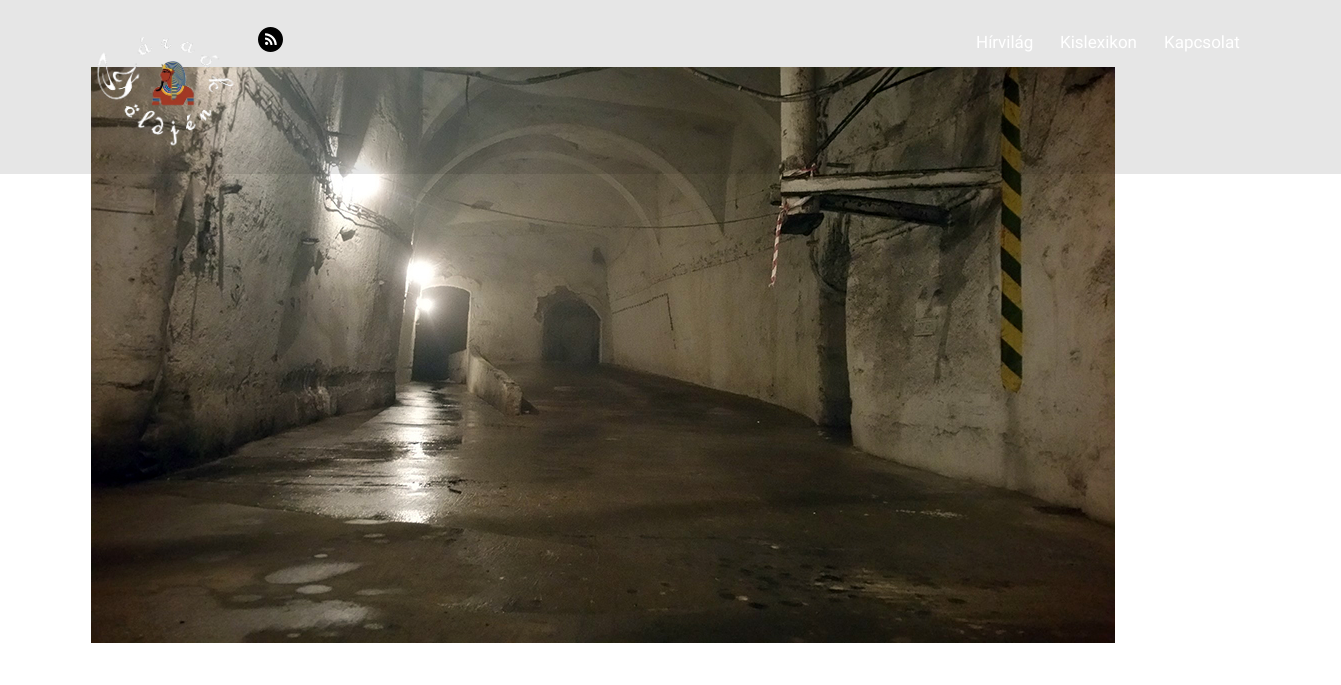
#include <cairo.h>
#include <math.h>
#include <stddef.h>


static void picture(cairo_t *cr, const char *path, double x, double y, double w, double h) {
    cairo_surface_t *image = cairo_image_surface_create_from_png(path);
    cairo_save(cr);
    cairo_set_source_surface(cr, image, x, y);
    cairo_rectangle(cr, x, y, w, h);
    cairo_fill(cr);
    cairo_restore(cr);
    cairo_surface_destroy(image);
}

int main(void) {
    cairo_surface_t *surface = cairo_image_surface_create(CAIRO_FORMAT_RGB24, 1341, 685);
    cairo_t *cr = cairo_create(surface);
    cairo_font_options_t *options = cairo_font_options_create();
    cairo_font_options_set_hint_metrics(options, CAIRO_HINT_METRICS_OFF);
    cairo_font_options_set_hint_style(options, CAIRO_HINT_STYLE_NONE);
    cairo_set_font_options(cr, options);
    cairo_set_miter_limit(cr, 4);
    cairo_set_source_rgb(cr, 1, 1, 1);
    cairo_paint(cr);
    picture(cr, "img3.png", 91, 67, 1024, 576);
    cairo_set_source_rgba(cr, 0, 0, 0, 0.1);
    cairo_rectangle(cr, 0, 0, 1341, 174);
    cairo_fill(cr);
    picture(cr, "img1.png", 97, 37, 137, 109);
    cairo_set_source_rgb(cr, 0, 0, 0);
    cairo_arc(cr, 270.5, 39.5, 12.5, 0, 2 * M_PI);
    cairo_fill(cr);
    picture(cr, "img2.png", 265, 33, 12, 12);
    cairo_select_font_face(cr, "Roboto", CAIRO_FONT_SLANT_NORMAL, CAIRO_FONT_WEIGHT_NORMAL);
    cairo_set_font_size(cr, 17);
    cairo_set_source_rgb(cr, 1, 1, 1);
    cairo_move_to(cr, 976, 48);
    cairo_show_text(cr, "Hírvilág");
    cairo_move_to(cr, 1060, 48);
    cairo_show_text(cr, "Kislexikon");
    cairo_move_to(cr, 1164, 48);
    cairo_show_text(cr, "Kapcsolat");
    cairo_surface_write_to_png(surface, "page.png");
    cairo_font_options_destroy(options);
    cairo_destroy(cr);
    cairo_surface_destroy(surface);
    return 0;
}
